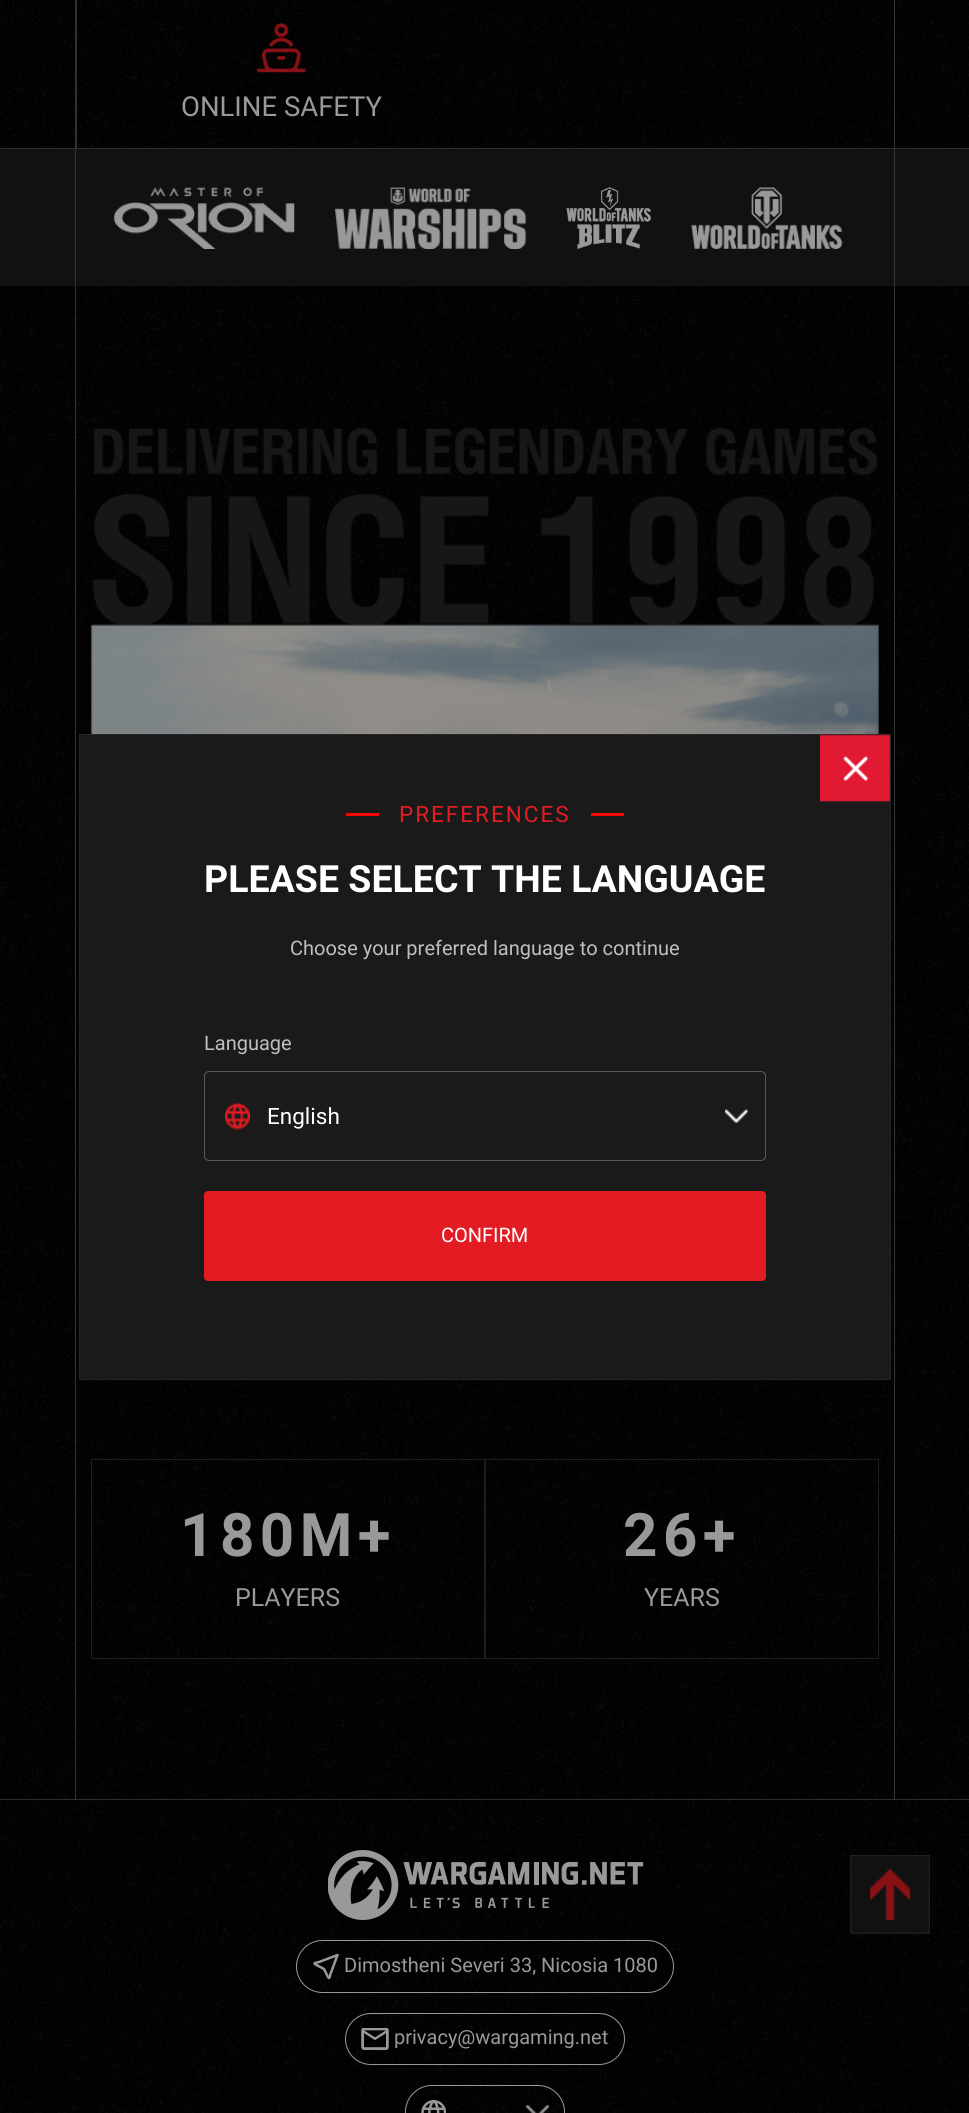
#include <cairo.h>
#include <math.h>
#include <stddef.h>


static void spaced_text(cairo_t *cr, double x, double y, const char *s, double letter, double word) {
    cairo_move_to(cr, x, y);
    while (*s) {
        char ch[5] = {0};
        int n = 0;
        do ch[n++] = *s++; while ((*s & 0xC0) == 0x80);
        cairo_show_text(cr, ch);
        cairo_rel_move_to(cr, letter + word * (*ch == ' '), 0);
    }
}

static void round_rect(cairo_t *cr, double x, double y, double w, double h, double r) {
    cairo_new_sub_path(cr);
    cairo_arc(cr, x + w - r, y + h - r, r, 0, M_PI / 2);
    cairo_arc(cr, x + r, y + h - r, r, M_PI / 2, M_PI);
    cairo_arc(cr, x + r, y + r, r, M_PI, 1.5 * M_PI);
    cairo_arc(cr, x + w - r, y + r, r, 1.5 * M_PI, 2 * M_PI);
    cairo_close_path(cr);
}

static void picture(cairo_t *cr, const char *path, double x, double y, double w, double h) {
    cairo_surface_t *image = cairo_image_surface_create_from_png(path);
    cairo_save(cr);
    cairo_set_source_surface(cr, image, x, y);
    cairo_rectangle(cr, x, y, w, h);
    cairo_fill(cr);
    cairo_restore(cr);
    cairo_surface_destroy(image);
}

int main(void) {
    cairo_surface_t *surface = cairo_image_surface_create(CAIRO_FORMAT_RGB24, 969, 2113);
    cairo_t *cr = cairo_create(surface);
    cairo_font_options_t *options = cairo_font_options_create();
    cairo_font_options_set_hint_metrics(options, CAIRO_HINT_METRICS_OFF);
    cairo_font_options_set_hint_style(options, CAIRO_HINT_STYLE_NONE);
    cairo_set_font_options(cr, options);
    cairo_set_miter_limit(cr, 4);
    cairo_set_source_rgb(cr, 1, 1, 1);
    cairo_paint(cr);
    picture(cr, "img1.png", 0, 0, 969, 2113);
    cairo_set_source_rgb(cr, 0.18, 0.18, 0.184);
    cairo_rectangle(cr, 0, 148, 969, 1);
    cairo_fill(cr);
    cairo_set_source_rgb(cr, 0.067, 0.067, 0.067);
    cairo_rectangle(cr, 0, 149, 969, 137);
    cairo_fill(cr);
    cairo_set_source_rgb(cr, 0.18, 0.18, 0.184);
    cairo_rectangle(cr, 0, 1799, 969, 1);
    cairo_fill(cr);
    cairo_set_source_rgb(cr, 0.208, 0.208, 0.212);
    cairo_rectangle(cr, 75, 0, 1, 1800);
    cairo_fill(cr);
    cairo_set_source_rgb(cr, 0.18, 0.18, 0.184);
    cairo_rectangle(cr, 76, 0, 1, 148);
    cairo_fill(cr);
    picture(cr, "img2.png", 256, 22, 51, 51);
    cairo_select_font_face(cr, "Roboto", CAIRO_FONT_SLANT_NORMAL, CAIRO_FONT_WEIGHT_NORMAL);
    cairo_set_font_size(cr, 27.5);
    cairo_set_source_rgb(cr, 0.6, 0.6, 0.6);
    cairo_move_to(cr, 181, 116);
    cairo_show_text(cr, "ONLINE SAFETY");
    picture(cr, "img3.png", 113, 187, 182, 62);
    picture(cr, "img4.png", 335, 187, 192, 62);
    picture(cr, "img5.png", 566, 187, 86, 62);
    picture(cr, "img6.png", 691, 187, 152, 62);
    picture(cr, "img7.png", 91, 427, 788, 307);
    cairo_rectangle(cr, 91.5, 1459.5, 393, 199);
    cairo_set_source_rgb(cr, 0.122, 0.122, 0.122);
    cairo_set_line_width(cr, 1);
    cairo_stroke(cr);
    cairo_select_font_face(cr, "Roboto", CAIRO_FONT_SLANT_NORMAL, CAIRO_FONT_WEIGHT_BOLD);
    cairo_set_font_size(cr, 60);
    cairo_set_source_rgb(cr, 0.6, 0.6, 0.6);
    spaced_text(cr, 180, 1556, "180M+", 5.5, 0);
    cairo_select_font_face(cr, "Roboto", CAIRO_FONT_SLANT_NORMAL, CAIRO_FONT_WEIGHT_NORMAL);
    cairo_set_font_size(cr, 25);
    cairo_move_to(cr, 235, 1606);
    cairo_show_text(cr, "PLAYERS");
    cairo_rectangle(cr, 485.5, 1459.5, 393, 199);
    cairo_set_source_rgb(cr, 0.122, 0.122, 0.122);
    cairo_stroke(cr);
    cairo_select_font_face(cr, "Roboto", CAIRO_FONT_SLANT_NORMAL, CAIRO_FONT_WEIGHT_BOLD);
    cairo_set_font_size(cr, 60);
    cairo_set_source_rgb(cr, 0.6, 0.6, 0.6);
    spaced_text(cr, 623, 1556, "26+", 5.5, 0);
    cairo_select_font_face(cr, "Roboto", CAIRO_FONT_SLANT_NORMAL, CAIRO_FONT_WEIGHT_NORMAL);
    cairo_set_font_size(cr, 25);
    cairo_move_to(cr, 644, 1606);
    cairo_show_text(cr, "YEARS");
    cairo_set_source_rgb(cr, 0.208, 0.208, 0.212);
    cairo_rectangle(cr, 894, 0, 1, 1800);
    cairo_fill(cr);
    picture(cr, "img8.png", 850, 1855, 80, 79);
    picture(cr, "img9.png", 328, 1850, 316, 70);
    round_rect(cr, 296.5, 1940.5, 377, 52, 26);
    cairo_set_source_rgb(cr, 0.6, 0.6, 0.6);
    cairo_stroke(cr);
    cairo_new_path(cr);
    cairo_move_to(cr, 337.5, 1955);
    cairo_line_to(cr, 330.5, 1974);
    cairo_curve_to(cr, 329.5, 1977.5, 329.5, 1980, 327.5, 1976);
    cairo_line_to(cr, 324, 1969);
    cairo_line_to(cr, 316.5, 1965);
    cairo_curve_to(cr, 312.5, 1963, 315, 1963, 319, 1962);
    cairo_close_path(cr);
    cairo_set_line_width(cr, 2.5);
    cairo_set_line_cap(cr, CAIRO_LINE_CAP_ROUND);
    cairo_set_line_join(cr, CAIRO_LINE_JOIN_ROUND);
    cairo_stroke(cr);
    cairo_set_font_size(cr, 20);
    cairo_move_to(cr, 344, 1972);
    cairo_show_text(cr, "Dimostheni Severi 33, Nicosia 1080");
    round_rect(cr, 345.5, 2013.5, 279, 51, 25.5);
    cairo_set_line_width(cr, 1);
    cairo_set_line_cap(cr, CAIRO_LINE_CAP_BUTT);
    cairo_set_line_join(cr, CAIRO_LINE_JOIN_MITER);
    cairo_stroke(cr);
    picture(cr, "img10.png", 361, 2028, 28, 22);
    cairo_move_to(cr, 394, 2044);
    cairo_show_text(cr, "privacy@wargaming.net");
    round_rect(cr, 405.5, 2085.5, 159, 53, 26.5);
    cairo_stroke(cr);
    picture(cr, "img11.png", 421, 2100, 25, 13);
    picture(cr, "img12.png", 526, 2105, 23, 8);
    cairo_set_source_rgb(cr, 0.102, 0.102, 0.102);
    cairo_rectangle(cr, 79.5, 734.5, 811, 645);
    cairo_fill_preserve(cr);
    cairo_set_source_rgb(cr, 0.149, 0.149, 0.149);
    cairo_stroke(cr);
    picture(cr, "img13.png", 820, 734, 70, 68);
    cairo_set_source_rgb(cr, 1, 0, 0);
    cairo_rectangle(cr, 346, 813, 33, 3);
    cairo_fill(cr);
    cairo_set_font_size(cr, 22.5);
    cairo_set_source_rgb(cr, 0.89, 0.11, 0.137);
    spaced_text(cr, 399, 822, "PREFERENCES", 2, 0);
    cairo_set_source_rgb(cr, 1, 0, 0);
    cairo_rectangle(cr, 591, 813, 33, 3);
    cairo_fill(cr);
    cairo_select_font_face(cr, "Roboto", CAIRO_FONT_SLANT_NORMAL, CAIRO_FONT_WEIGHT_BOLD);
    cairo_set_font_size(cr, 37.5);
    cairo_set_source_rgb(cr, 1, 1, 1);
    cairo_move_to(cr, 204, 892);
    cairo_show_text(cr, "PLEASE SELECT THE LANGUAGE");
    cairo_select_font_face(cr, "Roboto", CAIRO_FONT_SLANT_NORMAL, CAIRO_FONT_WEIGHT_NORMAL);
    cairo_set_font_size(cr, 20);
    cairo_set_source_rgb(cr, 0.749, 0.749, 0.749);
    cairo_move_to(cr, 290, 955);
    cairo_show_text(cr, "Choose your preferred language to continue");
    cairo_move_to(cr, 204, 1050);
    cairo_show_text(cr, "Language");
    round_rect(cr, 204.5, 1071.5, 561, 89, 4.5);
    cairo_set_source_rgb(cr, 0.349, 0.349, 0.353);
    cairo_stroke(cr);
    picture(cr, "img14.png", 225, 1103, 25, 27);
    cairo_set_font_size(cr, 22.5);
    cairo_set_source_rgb(cr, 1, 1, 1);
    cairo_move_to(cr, 267, 1124);
    cairo_show_text(cr, "English");
    picture(cr, "img15.png", 725, 1109, 23, 14);
    cairo_set_source_rgb(cr, 0.89, 0.11, 0.137);
    round_rect(cr, 204, 1191, 562, 90, 4);
    cairo_fill(cr);
    cairo_set_font_size(cr, 20);
    cairo_set_source_rgb(cr, 1, 1, 1);
    cairo_move_to(cr, 441, 1242);
    cairo_show_text(cr, "CONFIRM");
    cairo_surface_write_to_png(surface, "page.png");
    cairo_font_options_destroy(options);
    cairo_destroy(cr);
    cairo_surface_destroy(surface);
    return 0;
}
